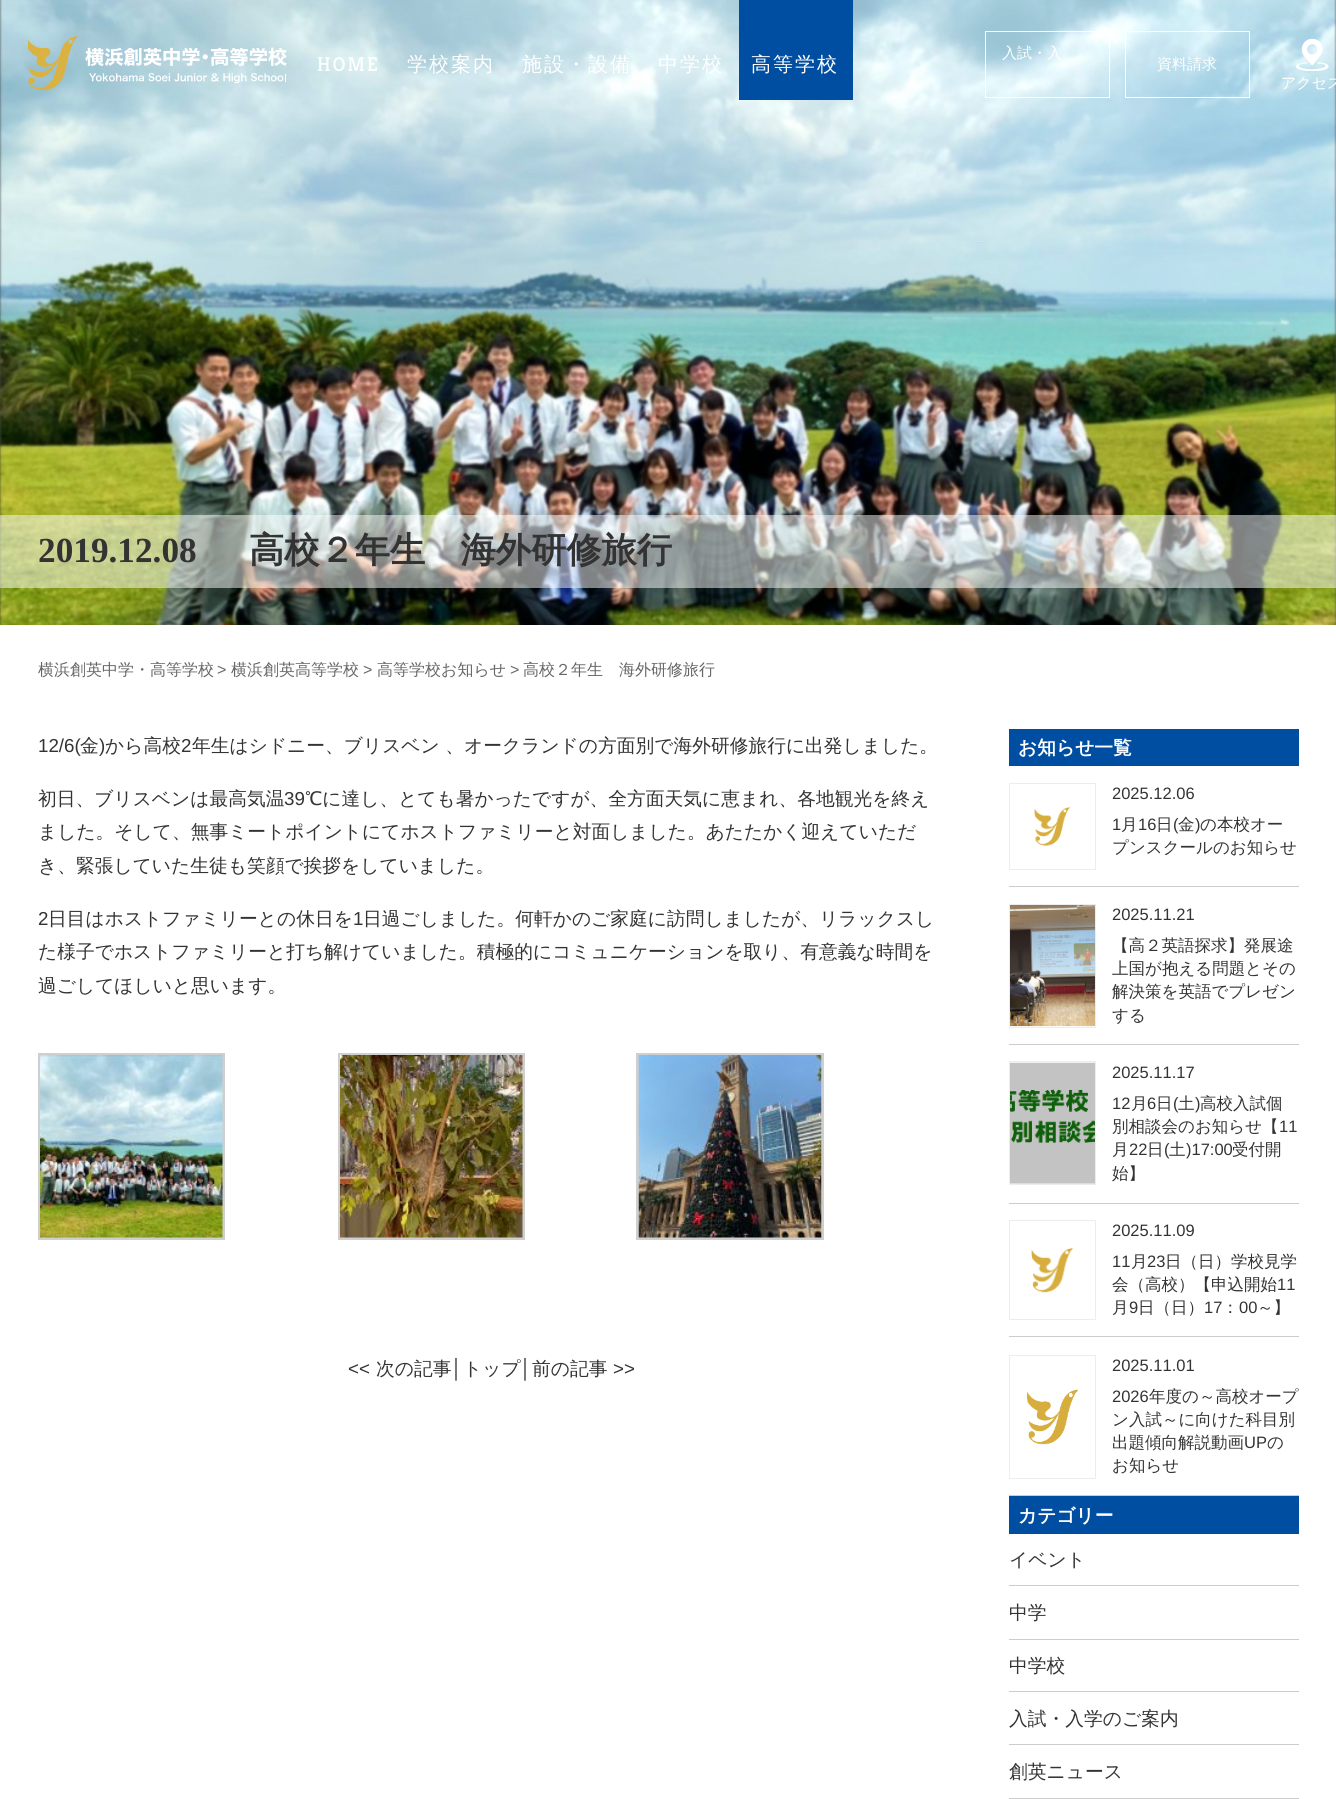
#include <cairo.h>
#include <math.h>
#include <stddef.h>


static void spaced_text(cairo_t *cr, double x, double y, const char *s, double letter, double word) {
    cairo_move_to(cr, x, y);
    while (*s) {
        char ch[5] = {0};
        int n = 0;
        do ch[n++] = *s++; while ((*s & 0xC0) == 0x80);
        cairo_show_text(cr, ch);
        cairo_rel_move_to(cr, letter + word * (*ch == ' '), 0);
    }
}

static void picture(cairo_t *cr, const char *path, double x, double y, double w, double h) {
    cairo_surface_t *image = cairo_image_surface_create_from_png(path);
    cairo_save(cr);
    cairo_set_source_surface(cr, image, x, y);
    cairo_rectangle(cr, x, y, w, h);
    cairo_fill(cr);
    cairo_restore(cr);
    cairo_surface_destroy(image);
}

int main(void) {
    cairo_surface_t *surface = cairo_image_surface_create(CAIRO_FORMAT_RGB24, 1336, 1799);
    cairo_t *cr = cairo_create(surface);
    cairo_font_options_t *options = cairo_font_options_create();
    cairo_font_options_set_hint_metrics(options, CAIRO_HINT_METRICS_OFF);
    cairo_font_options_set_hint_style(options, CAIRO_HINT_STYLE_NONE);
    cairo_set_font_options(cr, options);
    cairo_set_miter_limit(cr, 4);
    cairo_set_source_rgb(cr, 1, 1, 1);
    cairo_paint(cr);
    picture(cr, "img3.png", 0, 0, 1336, 625);
    picture(cr, "img1.png", 28, 36, 259, 54);
    cairo_select_font_face(cr, "Kreon", CAIRO_FONT_SLANT_NORMAL, CAIRO_FONT_WEIGHT_NORMAL);
    cairo_set_font_size(cr, 20);
    cairo_set_source_rgb(cr, 1, 1, 1);
    spaced_text(cr, 317, 71, "HOME", 2, 0);
    cairo_select_font_face(cr, "WenQuanYi Zen Hei Medium", CAIRO_FONT_SLANT_NORMAL, CAIRO_FONT_WEIGHT_NORMAL);
    spaced_text(cr, 407, 71, "学校案内", 2, 0);
    spaced_text(cr, 522, 71, "施設・設備", 2, 0);
    spaced_text(cr, 658, 71, "中学校", 2, 0);
    cairo_set_source_rgb(cr, 0, 0.306, 0.635);
    cairo_rectangle(cr, 739, 0, 114, 100);
    cairo_fill(cr);
    cairo_set_source_rgb(cr, 1, 1, 1);
    spaced_text(cr, 751, 71, "高等学校", 2, 0);
    cairo_rectangle(cr, 985.5, 31.5, 124, 66);
    cairo_set_line_width(cr, 1);
    cairo_stroke(cr);
    cairo_set_font_size(cr, 15);
    cairo_move_to(cr, 1002, 58);
    cairo_show_text(cr, "入試・入");
    cairo_rectangle(cr, 1125.5, 31.5, 124, 66);
    cairo_stroke(cr);
    cairo_move_to(cr, 1157, 69);
    cairo_show_text(cr, "資料請求");
    picture(cr, "img2.png", 1296, 39, 33, 32);
    cairo_move_to(cr, 1281, 88);
    cairo_show_text(cr, "アクセス");
    cairo_set_source_rgba(cr, 1, 1, 1, 0.5);
    cairo_rectangle(cr, 0, 515, 1336, 73);
    cairo_fill(cr);
    cairo_select_font_face(cr, "Liberation Serif", CAIRO_FONT_SLANT_NORMAL, CAIRO_FONT_WEIGHT_BOLD);
    cairo_set_font_size(cr, 35.25);
    cairo_set_source_rgb(cr, 0.2, 0.2, 0.2);
    cairo_move_to(cr, 38, 562);
    cairo_show_text(cr, "2019.12.08");
    cairo_select_font_face(cr, "WenQuanYi Zen Hei", CAIRO_FONT_SLANT_NORMAL, CAIRO_FONT_WEIGHT_BOLD);
    cairo_move_to(cr, 249, 562);
    cairo_show_text(cr, "高校２年生　海外研修旅行");
    cairo_select_font_face(cr, "WenQuanYi Zen Hei Medium", CAIRO_FONT_SLANT_NORMAL, CAIRO_FONT_WEIGHT_NORMAL);
    cairo_set_font_size(cr, 16);
    cairo_set_source_rgb(cr, 0.4, 0.4, 0.4);
    cairo_move_to(cr, 38, 675);
    cairo_show_text(cr, "横浜創英中学・高等学校");
    cairo_select_font_face(cr, "Liberation Sans", CAIRO_FONT_SLANT_NORMAL, CAIRO_FONT_WEIGHT_NORMAL);
    cairo_move_to(cr, 217, 675);
    cairo_show_text(cr, ">");
    cairo_select_font_face(cr, "WenQuanYi Zen Hei Medium", CAIRO_FONT_SLANT_NORMAL, CAIRO_FONT_WEIGHT_NORMAL);
    cairo_move_to(cr, 231, 675);
    cairo_show_text(cr, "横浜創英高等学校");
    cairo_select_font_face(cr, "Liberation Sans", CAIRO_FONT_SLANT_NORMAL, CAIRO_FONT_WEIGHT_NORMAL);
    cairo_move_to(cr, 363, 675);
    cairo_show_text(cr, ">");
    cairo_select_font_face(cr, "WenQuanYi Zen Hei Medium", CAIRO_FONT_SLANT_NORMAL, CAIRO_FONT_WEIGHT_NORMAL);
    cairo_move_to(cr, 377, 675);
    cairo_show_text(cr, "高等学校お知らせ");
    cairo_select_font_face(cr, "Liberation Sans", CAIRO_FONT_SLANT_NORMAL, CAIRO_FONT_WEIGHT_NORMAL);
    cairo_move_to(cr, 510, 675);
    cairo_show_text(cr, ">");
    cairo_select_font_face(cr, "WenQuanYi Zen Hei Medium", CAIRO_FONT_SLANT_NORMAL, CAIRO_FONT_WEIGHT_NORMAL);
    cairo_move_to(cr, 523, 675);
    cairo_show_text(cr, "高校２年生　海外研修旅行");
    cairo_select_font_face(cr, "Liberation Sans", CAIRO_FONT_SLANT_NORMAL, CAIRO_FONT_WEIGHT_NORMAL);
    cairo_set_font_size(cr, 18.75);
    cairo_set_source_rgb(cr, 0.2, 0.2, 0.2);
    cairo_move_to(cr, 38, 752);
    cairo_show_text(cr, "12/6(");
    cairo_select_font_face(cr, "WenQuanYi Zen Hei Medium", CAIRO_FONT_SLANT_NORMAL, CAIRO_FONT_WEIGHT_NORMAL);
    cairo_move_to(cr, 80, 752);
    cairo_show_text(cr, "金");
    cairo_select_font_face(cr, "Liberation Sans", CAIRO_FONT_SLANT_NORMAL, CAIRO_FONT_WEIGHT_NORMAL);
    cairo_move_to(cr, 99, 752);
    cairo_show_text(cr, ")");
    cairo_select_font_face(cr, "WenQuanYi Zen Hei Medium", CAIRO_FONT_SLANT_NORMAL, CAIRO_FONT_WEIGHT_NORMAL);
    cairo_move_to(cr, 105, 752);
    cairo_show_text(cr, "から高校");
    cairo_select_font_face(cr, "Liberation Sans", CAIRO_FONT_SLANT_NORMAL, CAIRO_FONT_WEIGHT_NORMAL);
    cairo_move_to(cr, 181, 752);
    cairo_show_text(cr, "2");
    cairo_select_font_face(cr, "WenQuanYi Zen Hei Medium", CAIRO_FONT_SLANT_NORMAL, CAIRO_FONT_WEIGHT_NORMAL);
    cairo_move_to(cr, 192, 752);
    cairo_show_text(cr, "年生はシドニー、ブリスベン 、オークランドの方面別で海外研修旅行に出発しました。");
    cairo_move_to(cr, 38, 805);
    cairo_show_text(cr, "初日、ブリスベンは最高気温");
    cairo_select_font_face(cr, "Liberation Sans", CAIRO_FONT_SLANT_NORMAL, CAIRO_FONT_WEIGHT_NORMAL);
    cairo_move_to(cr, 284, 805);
    cairo_show_text(cr, "39");
    cairo_select_font_face(cr, "WenQuanYi Zen Hei Medium", CAIRO_FONT_SLANT_NORMAL, CAIRO_FONT_WEIGHT_NORMAL);
    cairo_move_to(cr, 305, 805);
    cairo_show_text(cr, "℃に達し、とても暑かったですが、全方面天気に恵まれ、各地観光を終え");
    cairo_move_to(cr, 38, 838);
    cairo_show_text(cr, "ました。そして、無事ミートポイントにてホストファミリーと対面しました。あたたかく迎えていただ");
    cairo_move_to(cr, 38, 872);
    cairo_show_text(cr, "き、緊張していた生徒も笑顔で挨拶をしていました。");
    cairo_select_font_face(cr, "Liberation Sans", CAIRO_FONT_SLANT_NORMAL, CAIRO_FONT_WEIGHT_NORMAL);
    cairo_move_to(cr, 38, 925);
    cairo_show_text(cr, "2");
    cairo_select_font_face(cr, "WenQuanYi Zen Hei Medium", CAIRO_FONT_SLANT_NORMAL, CAIRO_FONT_WEIGHT_NORMAL);
    cairo_move_to(cr, 48, 925);
    cairo_show_text(cr, "日目はホストファミリーとの休日を");
    cairo_select_font_face(cr, "Liberation Sans", CAIRO_FONT_SLANT_NORMAL, CAIRO_FONT_WEIGHT_NORMAL);
    cairo_move_to(cr, 353, 925);
    cairo_show_text(cr, "1");
    cairo_select_font_face(cr, "WenQuanYi Zen Hei Medium", CAIRO_FONT_SLANT_NORMAL, CAIRO_FONT_WEIGHT_NORMAL);
    cairo_move_to(cr, 363, 925);
    cairo_show_text(cr, "日過ごしました。何軒かのご家庭に訪問しましたが、リラックスし");
    cairo_move_to(cr, 38, 958);
    cairo_show_text(cr, "た様子でホストファミリーと打ち解けていました。積極的にコミュニケーションを取り、有意義な時間を");
    cairo_move_to(cr, 38, 992);
    cairo_show_text(cr, "過ごしてほしいと思います。");
    cairo_rectangle(cr, 39.5, 1054.5, 184, 184);
    cairo_set_source_rgb(cr, 0.812, 0.812, 0.812);
    cairo_set_line_width(cr, 3);
    cairo_stroke(cr);
    picture(cr, "img4.png", 40, 1055, 183, 183);
    cairo_rectangle(cr, 339.5, 1054.5, 184, 184);
    cairo_stroke(cr);
    picture(cr, "img5.png", 340, 1055, 183, 183);
    cairo_rectangle(cr, 637.5, 1054.5, 185, 184);
    cairo_stroke(cr);
    picture(cr, "img6.png", 638, 1055, 184, 183);
    cairo_select_font_face(cr, "Liberation Sans", CAIRO_FONT_SLANT_NORMAL, CAIRO_FONT_WEIGHT_NORMAL);
    cairo_set_source_rgb(cr, 0.2, 0.2, 0.2);
    cairo_move_to(cr, 348, 1375);
    cairo_show_text(cr, "<<");
    cairo_select_font_face(cr, "WenQuanYi Zen Hei Medium", CAIRO_FONT_SLANT_NORMAL, CAIRO_FONT_WEIGHT_NORMAL);
    cairo_move_to(cr, 376, 1375);
    cairo_show_text(cr, "次の記事");
    cairo_select_font_face(cr, "Liberation Sans", CAIRO_FONT_SLANT_NORMAL, CAIRO_FONT_WEIGHT_NORMAL);
    cairo_move_to(cr, 451, 1375);
    cairo_show_text(cr, "│");
    cairo_select_font_face(cr, "WenQuanYi Zen Hei Medium", CAIRO_FONT_SLANT_NORMAL, CAIRO_FONT_WEIGHT_NORMAL);
    cairo_move_to(cr, 463, 1375);
    cairo_show_text(cr, "トップ");
    cairo_select_font_face(cr, "Liberation Sans", CAIRO_FONT_SLANT_NORMAL, CAIRO_FONT_WEIGHT_NORMAL);
    cairo_move_to(cr, 520, 1375);
    cairo_show_text(cr, "│");
    cairo_select_font_face(cr, "WenQuanYi Zen Hei Medium", CAIRO_FONT_SLANT_NORMAL, CAIRO_FONT_WEIGHT_NORMAL);
    cairo_move_to(cr, 532, 1375);
    cairo_show_text(cr, "前の記事");
    cairo_select_font_face(cr, "Liberation Sans", CAIRO_FONT_SLANT_NORMAL, CAIRO_FONT_WEIGHT_NORMAL);
    cairo_move_to(cr, 613, 1375);
    cairo_show_text(cr, ">>");
    cairo_set_source_rgb(cr, 0, 0.306, 0.635);
    cairo_rectangle(cr, 1009, 729, 290, 37);
    cairo_fill(cr);
    cairo_select_font_face(cr, "WenQuanYi Zen Hei", CAIRO_FONT_SLANT_NORMAL, CAIRO_FONT_WEIGHT_BOLD);
    cairo_set_source_rgb(cr, 1, 1, 1);
    cairo_move_to(cr, 1018, 754);
    cairo_show_text(cr, "お知らせ一覧");
    cairo_set_source_rgb(cr, 0.8, 0.8, 0.8);
    cairo_rectangle(cr, 1009, 886, 290, 1);
    cairo_fill(cr);
    cairo_rectangle(cr, 1009.5, 783.5, 86, 86);
    cairo_set_source_rgb(cr, 0.929, 0.929, 0.929);
    cairo_set_line_width(cr, 1);
    cairo_stroke(cr);
    picture(cr, "img7.png", 1034, 807, 37, 39);
    cairo_select_font_face(cr, "Liberation Sans", CAIRO_FONT_SLANT_NORMAL, CAIRO_FONT_WEIGHT_NORMAL);
    cairo_set_font_size(cr, 16.5);
    cairo_set_source_rgb(cr, 0.2, 0.2, 0.2);
    cairo_move_to(cr, 1112, 799);
    cairo_show_text(cr, "2025.12.06");
    cairo_move_to(cr, 1112, 830);
    cairo_show_text(cr, "1");
    cairo_select_font_face(cr, "WenQuanYi Zen Hei Medium", CAIRO_FONT_SLANT_NORMAL, CAIRO_FONT_WEIGHT_NORMAL);
    cairo_move_to(cr, 1121, 830);
    cairo_show_text(cr, "月");
    cairo_select_font_face(cr, "Liberation Sans", CAIRO_FONT_SLANT_NORMAL, CAIRO_FONT_WEIGHT_NORMAL);
    cairo_move_to(cr, 1138, 830);
    cairo_show_text(cr, "16");
    cairo_select_font_face(cr, "WenQuanYi Zen Hei Medium", CAIRO_FONT_SLANT_NORMAL, CAIRO_FONT_WEIGHT_NORMAL);
    cairo_move_to(cr, 1156, 830);
    cairo_show_text(cr, "日");
    cairo_select_font_face(cr, "Liberation Sans", CAIRO_FONT_SLANT_NORMAL, CAIRO_FONT_WEIGHT_NORMAL);
    cairo_move_to(cr, 1173, 830);
    cairo_show_text(cr, "(");
    cairo_select_font_face(cr, "WenQuanYi Zen Hei Medium", CAIRO_FONT_SLANT_NORMAL, CAIRO_FONT_WEIGHT_NORMAL);
    cairo_move_to(cr, 1178, 830);
    cairo_show_text(cr, "金");
    cairo_select_font_face(cr, "Liberation Sans", CAIRO_FONT_SLANT_NORMAL, CAIRO_FONT_WEIGHT_NORMAL);
    cairo_move_to(cr, 1195, 830);
    cairo_show_text(cr, ")");
    cairo_select_font_face(cr, "WenQuanYi Zen Hei Medium", CAIRO_FONT_SLANT_NORMAL, CAIRO_FONT_WEIGHT_NORMAL);
    cairo_move_to(cr, 1200, 830);
    cairo_show_text(cr, "の本校オー");
    cairo_move_to(cr, 1112, 853);
    cairo_show_text(cr, "プンスクールのお知らせ");
    cairo_set_source_rgb(cr, 0.8, 0.8, 0.8);
    cairo_rectangle(cr, 1009, 1044, 290, 1);
    cairo_fill(cr);
    cairo_rectangle(cr, 1009.5, 904.5, 86, 123);
    cairo_set_source_rgb(cr, 0.929, 0.929, 0.929);
    cairo_stroke(cr);
    picture(cr, "img8.png", 1010, 905, 85, 122);
    cairo_select_font_face(cr, "Liberation Sans", CAIRO_FONT_SLANT_NORMAL, CAIRO_FONT_WEIGHT_NORMAL);
    cairo_set_source_rgb(cr, 0.2, 0.2, 0.2);
    cairo_move_to(cr, 1112, 920);
    cairo_show_text(cr, "2025.11.21");
    cairo_select_font_face(cr, "WenQuanYi Zen Hei Medium", CAIRO_FONT_SLANT_NORMAL, CAIRO_FONT_WEIGHT_NORMAL);
    cairo_move_to(cr, 1112, 951);
    cairo_show_text(cr, "【高２英語探求】発展途");
    cairo_move_to(cr, 1112, 974);
    cairo_show_text(cr, "上国が抱える問題とその");
    cairo_move_to(cr, 1112, 997);
    cairo_show_text(cr, "解決策を英語でプレゼン");
    cairo_move_to(cr, 1112, 1021);
    cairo_show_text(cr, "する");
    cairo_set_source_rgb(cr, 0.8, 0.8, 0.8);
    cairo_rectangle(cr, 1009, 1203, 290, 1);
    cairo_fill(cr);
    cairo_rectangle(cr, 1009.5, 1061.5, 86, 123);
    cairo_set_source_rgb(cr, 0.929, 0.929, 0.929);
    cairo_stroke(cr);
    picture(cr, "img9.png", 1010, 1062, 85, 122);
    cairo_select_font_face(cr, "Liberation Sans", CAIRO_FONT_SLANT_NORMAL, CAIRO_FONT_WEIGHT_NORMAL);
    cairo_set_source_rgb(cr, 0.2, 0.2, 0.2);
    cairo_move_to(cr, 1112, 1078);
    cairo_show_text(cr, "2025.11.17");
    cairo_move_to(cr, 1112, 1109);
    cairo_show_text(cr, "12");
    cairo_select_font_face(cr, "WenQuanYi Zen Hei Medium", CAIRO_FONT_SLANT_NORMAL, CAIRO_FONT_WEIGHT_NORMAL);
    cairo_move_to(cr, 1131, 1109);
    cairo_show_text(cr, "月");
    cairo_select_font_face(cr, "Liberation Sans", CAIRO_FONT_SLANT_NORMAL, CAIRO_FONT_WEIGHT_NORMAL);
    cairo_move_to(cr, 1147, 1109);
    cairo_show_text(cr, "6");
    cairo_select_font_face(cr, "WenQuanYi Zen Hei Medium", CAIRO_FONT_SLANT_NORMAL, CAIRO_FONT_WEIGHT_NORMAL);
    cairo_move_to(cr, 1156, 1109);
    cairo_show_text(cr, "日");
    cairo_select_font_face(cr, "Liberation Sans", CAIRO_FONT_SLANT_NORMAL, CAIRO_FONT_WEIGHT_NORMAL);
    cairo_move_to(cr, 1173, 1109);
    cairo_show_text(cr, "(");
    cairo_select_font_face(cr, "WenQuanYi Zen Hei Medium", CAIRO_FONT_SLANT_NORMAL, CAIRO_FONT_WEIGHT_NORMAL);
    cairo_move_to(cr, 1178, 1109);
    cairo_show_text(cr, "土");
    cairo_select_font_face(cr, "Liberation Sans", CAIRO_FONT_SLANT_NORMAL, CAIRO_FONT_WEIGHT_NORMAL);
    cairo_move_to(cr, 1195, 1109);
    cairo_show_text(cr, ")");
    cairo_select_font_face(cr, "WenQuanYi Zen Hei Medium", CAIRO_FONT_SLANT_NORMAL, CAIRO_FONT_WEIGHT_NORMAL);
    cairo_move_to(cr, 1200, 1109);
    cairo_show_text(cr, "高校入試個");
    cairo_move_to(cr, 1112, 1132);
    cairo_show_text(cr, "別相談会のお知らせ【");
    cairo_select_font_face(cr, "Liberation Sans", CAIRO_FONT_SLANT_NORMAL, CAIRO_FONT_WEIGHT_NORMAL);
    cairo_move_to(cr, 1279, 1132);
    cairo_show_text(cr, "11");
    cairo_select_font_face(cr, "WenQuanYi Zen Hei Medium", CAIRO_FONT_SLANT_NORMAL, CAIRO_FONT_WEIGHT_NORMAL);
    cairo_move_to(cr, 1112, 1155);
    cairo_show_text(cr, "月");
    cairo_select_font_face(cr, "Liberation Sans", CAIRO_FONT_SLANT_NORMAL, CAIRO_FONT_WEIGHT_NORMAL);
    cairo_move_to(cr, 1129, 1155);
    cairo_show_text(cr, "22");
    cairo_select_font_face(cr, "WenQuanYi Zen Hei Medium", CAIRO_FONT_SLANT_NORMAL, CAIRO_FONT_WEIGHT_NORMAL);
    cairo_move_to(cr, 1147, 1155);
    cairo_show_text(cr, "日");
    cairo_select_font_face(cr, "Liberation Sans", CAIRO_FONT_SLANT_NORMAL, CAIRO_FONT_WEIGHT_NORMAL);
    cairo_move_to(cr, 1164, 1155);
    cairo_show_text(cr, "(");
    cairo_select_font_face(cr, "WenQuanYi Zen Hei Medium", CAIRO_FONT_SLANT_NORMAL, CAIRO_FONT_WEIGHT_NORMAL);
    cairo_move_to(cr, 1169, 1155);
    cairo_show_text(cr, "土");
    cairo_select_font_face(cr, "Liberation Sans", CAIRO_FONT_SLANT_NORMAL, CAIRO_FONT_WEIGHT_NORMAL);
    cairo_move_to(cr, 1186, 1155);
    cairo_show_text(cr, ")17:00");
    cairo_select_font_face(cr, "WenQuanYi Zen Hei Medium", CAIRO_FONT_SLANT_NORMAL, CAIRO_FONT_WEIGHT_NORMAL);
    cairo_move_to(cr, 1232, 1155);
    cairo_show_text(cr, "受付開");
    cairo_move_to(cr, 1112, 1179);
    cairo_show_text(cr, "始】");
    cairo_set_source_rgb(cr, 0.8, 0.8, 0.8);
    cairo_rectangle(cr, 1009, 1336, 290, 1);
    cairo_fill(cr);
    cairo_rectangle(cr, 1009.5, 1220.5, 86, 99);
    cairo_set_source_rgb(cr, 0.929, 0.929, 0.929);
    cairo_stroke(cr);
    picture(cr, "img10.png", 1031, 1247, 43, 46);
    cairo_select_font_face(cr, "Liberation Sans", CAIRO_FONT_SLANT_NORMAL, CAIRO_FONT_WEIGHT_NORMAL);
    cairo_set_source_rgb(cr, 0.2, 0.2, 0.2);
    cairo_move_to(cr, 1112, 1236);
    cairo_show_text(cr, "2025.11.09");
    cairo_move_to(cr, 1112, 1267);
    cairo_show_text(cr, "11");
    cairo_select_font_face(cr, "WenQuanYi Zen Hei Medium", CAIRO_FONT_SLANT_NORMAL, CAIRO_FONT_WEIGHT_NORMAL);
    cairo_move_to(cr, 1131, 1267);
    cairo_show_text(cr, "月");
    cairo_select_font_face(cr, "Liberation Sans", CAIRO_FONT_SLANT_NORMAL, CAIRO_FONT_WEIGHT_NORMAL);
    cairo_move_to(cr, 1147, 1267);
    cairo_show_text(cr, "23");
    cairo_select_font_face(cr, "WenQuanYi Zen Hei Medium", CAIRO_FONT_SLANT_NORMAL, CAIRO_FONT_WEIGHT_NORMAL);
    cairo_move_to(cr, 1165, 1267);
    cairo_show_text(cr, "日（日）学校見学");
    cairo_move_to(cr, 1112, 1290);
    cairo_show_text(cr, "会（高校）【申込開始");
    cairo_select_font_face(cr, "Liberation Sans", CAIRO_FONT_SLANT_NORMAL, CAIRO_FONT_WEIGHT_NORMAL);
    cairo_move_to(cr, 1277, 1290);
    cairo_show_text(cr, "11");
    cairo_select_font_face(cr, "WenQuanYi Zen Hei Medium", CAIRO_FONT_SLANT_NORMAL, CAIRO_FONT_WEIGHT_NORMAL);
    cairo_move_to(cr, 1112, 1313);
    cairo_show_text(cr, "月");
    cairo_select_font_face(cr, "Liberation Sans", CAIRO_FONT_SLANT_NORMAL, CAIRO_FONT_WEIGHT_NORMAL);
    cairo_move_to(cr, 1129, 1313);
    cairo_show_text(cr, "9");
    cairo_select_font_face(cr, "WenQuanYi Zen Hei Medium", CAIRO_FONT_SLANT_NORMAL, CAIRO_FONT_WEIGHT_NORMAL);
    cairo_move_to(cr, 1138, 1313);
    cairo_show_text(cr, "日（日）");
    cairo_select_font_face(cr, "Liberation Sans", CAIRO_FONT_SLANT_NORMAL, CAIRO_FONT_WEIGHT_NORMAL);
    cairo_move_to(cr, 1204, 1313);
    cairo_show_text(cr, "17");
    cairo_select_font_face(cr, "WenQuanYi Zen Hei Medium", CAIRO_FONT_SLANT_NORMAL, CAIRO_FONT_WEIGHT_NORMAL);
    cairo_move_to(cr, 1222, 1313);
    cairo_show_text(cr, "：");
    cairo_select_font_face(cr, "Liberation Sans", CAIRO_FONT_SLANT_NORMAL, CAIRO_FONT_WEIGHT_NORMAL);
    cairo_move_to(cr, 1239, 1313);
    cairo_show_text(cr, "00");
    cairo_select_font_face(cr, "WenQuanYi Zen Hei Medium", CAIRO_FONT_SLANT_NORMAL, CAIRO_FONT_WEIGHT_NORMAL);
    cairo_move_to(cr, 1257, 1313);
    cairo_show_text(cr, "～】");
    cairo_set_source_rgb(cr, 0.8, 0.8, 0.8);
    cairo_rectangle(cr, 1009, 1495, 290, 1);
    cairo_fill(cr);
    cairo_rectangle(cr, 1009.5, 1355.5, 86, 123);
    cairo_set_source_rgb(cr, 0.929, 0.929, 0.929);
    cairo_stroke(cr);
    picture(cr, "img11.png", 1026, 1389, 52, 56);
    cairo_select_font_face(cr, "Liberation Sans", CAIRO_FONT_SLANT_NORMAL, CAIRO_FONT_WEIGHT_NORMAL);
    cairo_set_source_rgb(cr, 0.2, 0.2, 0.2);
    cairo_move_to(cr, 1112, 1371);
    cairo_show_text(cr, "2025.11.01");
    cairo_move_to(cr, 1112, 1402);
    cairo_show_text(cr, "2026");
    cairo_select_font_face(cr, "WenQuanYi Zen Hei Medium", CAIRO_FONT_SLANT_NORMAL, CAIRO_FONT_WEIGHT_NORMAL);
    cairo_move_to(cr, 1149, 1402);
    cairo_show_text(cr, "年度の～高校オープ");
    cairo_move_to(cr, 1112, 1425);
    cairo_show_text(cr, "ン入試～に向けた科目別");
    cairo_move_to(cr, 1112, 1448);
    cairo_show_text(cr, "出題傾向解説動画");
    cairo_select_font_face(cr, "Liberation Sans", CAIRO_FONT_SLANT_NORMAL, CAIRO_FONT_WEIGHT_NORMAL);
    cairo_move_to(cr, 1244, 1448);
    cairo_show_text(cr, "UP");
    cairo_select_font_face(cr, "WenQuanYi Zen Hei Medium", CAIRO_FONT_SLANT_NORMAL, CAIRO_FONT_WEIGHT_NORMAL);
    cairo_move_to(cr, 1267, 1448);
    cairo_show_text(cr, "の");
    cairo_move_to(cr, 1112, 1471);
    cairo_show_text(cr, "お知らせ");
    cairo_set_source_rgb(cr, 0, 0.306, 0.635);
    cairo_rectangle(cr, 1009, 1496, 290, 38);
    cairo_fill(cr);
    cairo_select_font_face(cr, "WenQuanYi Zen Hei", CAIRO_FONT_SLANT_NORMAL, CAIRO_FONT_WEIGHT_BOLD);
    cairo_set_font_size(cr, 18.75);
    cairo_set_source_rgb(cr, 1, 1, 1);
    cairo_move_to(cr, 1018, 1522);
    cairo_show_text(cr, "カテゴリー");
    cairo_set_source_rgb(cr, 0.8, 0.8, 0.8);
    cairo_rectangle(cr, 1009, 1585, 290, 1);
    cairo_fill(cr);
    cairo_select_font_face(cr, "WenQuanYi Zen Hei Medium", CAIRO_FONT_SLANT_NORMAL, CAIRO_FONT_WEIGHT_NORMAL);
    cairo_set_source_rgb(cr, 0.2, 0.2, 0.2);
    cairo_move_to(cr, 1009, 1566);
    cairo_show_text(cr, "イベント");
    cairo_set_source_rgb(cr, 0.8, 0.8, 0.8);
    cairo_rectangle(cr, 1009, 1639, 290, 1);
    cairo_fill(cr);
    cairo_set_source_rgb(cr, 0.2, 0.2, 0.2);
    cairo_move_to(cr, 1009, 1619);
    cairo_show_text(cr, "中学");
    cairo_set_source_rgb(cr, 0.8, 0.8, 0.8);
    cairo_rectangle(cr, 1009, 1691, 290, 1);
    cairo_fill(cr);
    cairo_set_source_rgb(cr, 0.2, 0.2, 0.2);
    cairo_move_to(cr, 1009, 1672);
    cairo_show_text(cr, "中学校");
    cairo_set_source_rgb(cr, 0.8, 0.8, 0.8);
    cairo_rectangle(cr, 1009, 1744, 290, 1);
    cairo_fill(cr);
    cairo_set_source_rgb(cr, 0.2, 0.2, 0.2);
    cairo_move_to(cr, 1009, 1725);
    cairo_show_text(cr, "入試・入学のご案内");
    cairo_set_source_rgb(cr, 0.8, 0.8, 0.8);
    cairo_rectangle(cr, 1009, 1798, 290, 1);
    cairo_fill(cr);
    cairo_set_source_rgb(cr, 0.2, 0.2, 0.2);
    cairo_move_to(cr, 1009, 1778);
    cairo_show_text(cr, "創英ニュース");
    cairo_surface_write_to_png(surface, "page.png");
    cairo_font_options_destroy(options);
    cairo_destroy(cr);
    cairo_surface_destroy(surface);
    return 0;
}
